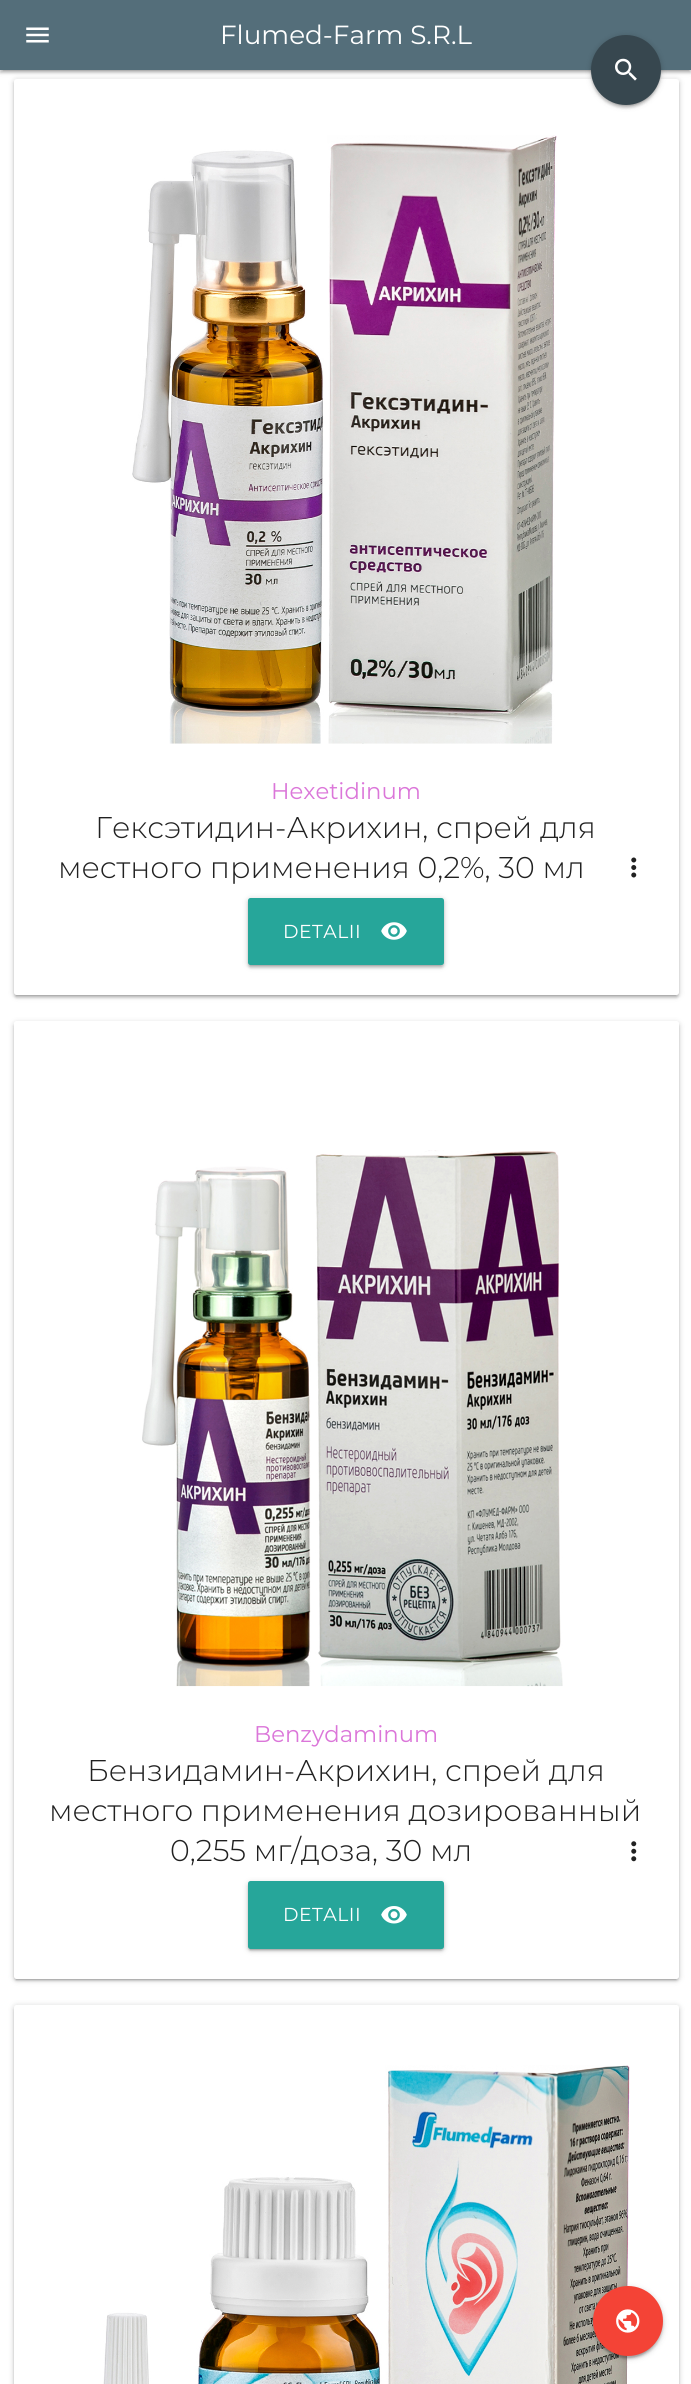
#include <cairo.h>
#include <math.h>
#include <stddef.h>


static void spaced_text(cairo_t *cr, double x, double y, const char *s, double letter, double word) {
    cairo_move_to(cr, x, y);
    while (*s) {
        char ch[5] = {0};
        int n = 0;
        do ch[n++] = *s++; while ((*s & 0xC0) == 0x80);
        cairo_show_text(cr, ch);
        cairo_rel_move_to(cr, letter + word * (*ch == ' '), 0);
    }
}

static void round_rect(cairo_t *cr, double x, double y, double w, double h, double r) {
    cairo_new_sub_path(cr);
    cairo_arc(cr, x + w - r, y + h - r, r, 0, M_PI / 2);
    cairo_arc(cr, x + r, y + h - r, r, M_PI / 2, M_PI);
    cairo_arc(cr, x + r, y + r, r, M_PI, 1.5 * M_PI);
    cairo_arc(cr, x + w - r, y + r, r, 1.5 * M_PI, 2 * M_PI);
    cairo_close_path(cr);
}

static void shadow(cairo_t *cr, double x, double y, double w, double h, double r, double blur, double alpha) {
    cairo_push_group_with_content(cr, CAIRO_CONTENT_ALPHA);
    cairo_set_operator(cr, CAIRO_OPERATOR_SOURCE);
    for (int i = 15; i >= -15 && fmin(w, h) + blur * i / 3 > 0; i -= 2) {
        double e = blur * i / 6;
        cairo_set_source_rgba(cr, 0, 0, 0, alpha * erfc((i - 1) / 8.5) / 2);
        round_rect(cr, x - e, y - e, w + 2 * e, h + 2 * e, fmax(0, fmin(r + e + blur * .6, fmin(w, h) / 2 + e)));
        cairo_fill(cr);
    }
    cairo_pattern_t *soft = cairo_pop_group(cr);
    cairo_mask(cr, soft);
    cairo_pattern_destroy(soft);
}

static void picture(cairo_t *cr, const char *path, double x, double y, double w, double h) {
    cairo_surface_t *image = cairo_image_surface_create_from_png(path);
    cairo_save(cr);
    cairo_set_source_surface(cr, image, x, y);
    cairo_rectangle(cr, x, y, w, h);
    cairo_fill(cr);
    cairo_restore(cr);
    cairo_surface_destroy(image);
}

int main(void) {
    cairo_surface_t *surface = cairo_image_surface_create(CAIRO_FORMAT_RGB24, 691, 2384);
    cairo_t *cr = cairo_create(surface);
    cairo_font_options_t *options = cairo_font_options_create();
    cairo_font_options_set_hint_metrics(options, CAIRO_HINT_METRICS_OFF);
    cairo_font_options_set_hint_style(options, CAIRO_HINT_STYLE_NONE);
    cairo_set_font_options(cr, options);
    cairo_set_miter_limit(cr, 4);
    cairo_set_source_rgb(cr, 1, 1, 1);
    cairo_paint(cr);
    cairo_set_source_rgb(cr, 0, 0, 0);
    shadow(cr, 14, 80, 665, 916, 2.5, 3, 0.2);
    shadow(cr, 16, 85, 660, 911, 0, 0.5, 0.12);
    shadow(cr, 14, 81, 665, 917, 2.5, 1, 0.14);
    cairo_set_source_rgb(cr, 1, 1, 1);
    round_rect(cr, 14, 79, 665, 916, 2.5);
    cairo_fill(cr);
    cairo_set_source_rgb(cr, 0, 0, 0);
    shadow(cr, 0, 1, 691, 70, 0, 3, 0.2);
    shadow(cr, 3, 6, 686, 65, 0, 0.5, 0.12);
    shadow(cr, 0, 3, 691, 70, 0, 1, 0.14);
    cairo_set_source_rgb(cr, 0.329, 0.431, 0.478);
    cairo_rectangle(cr, 0, 0, 691, 70);
    cairo_fill(cr);
    picture(cr, "img1.png", 26, 27, 23, 16);
    cairo_select_font_face(cr, "Montserrat", CAIRO_FONT_SLANT_NORMAL, CAIRO_FONT_WEIGHT_NORMAL);
    cairo_set_font_size(cr, 26.25);
    cairo_set_source_rgb(cr, 1, 1, 1);
    cairo_move_to(cr, 220, 44);
    cairo_show_text(cr, "Flumed-Farm S.R.L");
    cairo_set_source_rgb(cr, 0, 0, 0);
    shadow(cr, 591, 36, 70, 70, 35, 3, 0.2);
    shadow(cr, 594, 41, 65, 65, 32.5, 0.5, 0.12);
    shadow(cr, 591, 38, 70, 70, 35, 1, 0.14);
    cairo_set_source_rgb(cr, 0.216, 0.278, 0.31);
    cairo_arc(cr, 626, 70, 35, 0, 2 * M_PI);
    cairo_fill(cr);
    picture(cr, "img2.png", 615, 58, 22, 23);
    picture(cr, "img3.png", 132, 135, 425, 609);
    cairo_set_font_size(cr, 22.75);
    cairo_set_source_rgb(cr, 0.859, 0.463, 0.851);
    cairo_move_to(cr, 271, 799);
    cairo_show_text(cr, "Hexetidinum");
    cairo_select_font_face(cr, "Montserrat Light", CAIRO_FONT_SLANT_NORMAL, CAIRO_FONT_WEIGHT_NORMAL);
    cairo_set_font_size(cr, 30);
    cairo_set_source_rgb(cr, 0.129, 0.129, 0.129);
    cairo_move_to(cr, 95, 838);
    cairo_show_text(cr, "Гексэтидин-Акрихин, спрей для");
    cairo_move_to(cr, 58, 878);
    cairo_show_text(cr, "местного применения 0,2%, 30 мл");
    picture(cr, "img4.png", 631, 857, 6, 21);
    cairo_set_source_rgb(cr, 0, 0, 0);
    shadow(cr, 248, 899, 196, 67, 2.5, 3, 0.2);
    shadow(cr, 250, 904, 191, 62, 0, 0.5, 0.12);
    shadow(cr, 248, 900, 196, 68, 2.5, 1, 0.14);
    cairo_set_source_rgb(cr, 0.149, 0.651, 0.604);
    round_rect(cr, 248, 898, 196, 67, 2.5);
    cairo_fill(cr);
    cairo_select_font_face(cr, "Montserrat", CAIRO_FONT_SLANT_NORMAL, CAIRO_FONT_WEIGHT_NORMAL);
    cairo_set_font_size(cr, 18.75);
    cairo_set_source_rgb(cr, 1, 1, 1);
    spaced_text(cr, 283, 938, "DETALII", 0.5, 0);
    picture(cr, "img5.png", 381, 922, 26, 18);
    cairo_set_source_rgb(cr, 0, 0, 0);
    shadow(cr, 14, 1023, 665, 957, 2.5, 3, 0.2);
    shadow(cr, 16, 1028, 660, 952, 0, 0.5, 0.12);
    shadow(cr, 14, 1024, 665, 957, 2.5, 1, 0.14);
    cairo_set_source_rgb(cr, 1, 1, 1);
    round_rect(cr, 14, 1021, 665, 958, 2.5);
    cairo_fill(cr);
    picture(cr, "img6.png", 142, 1150, 421, 537);
    cairo_set_font_size(cr, 22.75);
    cairo_set_source_rgb(cr, 0.859, 0.463, 0.851);
    cairo_move_to(cr, 254, 1742);
    cairo_show_text(cr, "Benzydaminum");
    cairo_select_font_face(cr, "Montserrat Light", CAIRO_FONT_SLANT_NORMAL, CAIRO_FONT_WEIGHT_NORMAL);
    cairo_set_font_size(cr, 30);
    cairo_set_source_rgb(cr, 0.129, 0.129, 0.129);
    cairo_move_to(cr, 87, 1781);
    cairo_show_text(cr, "Бензидамин-Акрихин, спрей для");
    cairo_move_to(cr, 49, 1821);
    cairo_show_text(cr, "местного применения дозированный");
    cairo_move_to(cr, 170, 1861);
    cairo_show_text(cr, "0,255 мг/доза, 30 мл");
    picture(cr, "img7.png", 631, 1841, 6, 21);
    cairo_set_source_rgb(cr, 0, 0, 0);
    shadow(cr, 248, 1883, 196, 67, 2.5, 3, 0.2);
    shadow(cr, 250, 1888, 191, 62, 0, 0.5, 0.12);
    shadow(cr, 248, 1884, 196, 67, 2.5, 1, 0.14);
    cairo_set_source_rgb(cr, 0.149, 0.651, 0.604);
    round_rect(cr, 248, 1881, 196, 68, 2.5);
    cairo_fill(cr);
    cairo_select_font_face(cr, "Montserrat", CAIRO_FONT_SLANT_NORMAL, CAIRO_FONT_WEIGHT_NORMAL);
    cairo_set_font_size(cr, 18.75);
    cairo_set_source_rgb(cr, 1, 1, 1);
    spaced_text(cr, 283, 1921, "DETALII", 0.5, 0);
    picture(cr, "img8.png", 381, 1906, 26, 18);
    cairo_set_source_rgb(cr, 0, 0, 0);
    shadow(cr, 14, 2006, 665, 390, 2.5, 3, 0.2);
    shadow(cr, 14, 2008, 665, 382, 2.5, 1, 0.14);
    cairo_set_source_rgb(cr, 1, 1, 1);
    round_rect(cr, 14, 2005, 665, 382, 2.5);
    cairo_fill(cr);
    picture(cr, "img9.png", 103, 2065, 527, 319);
    cairo_set_source_rgb(cr, 0, 0, 0);
    shadow(cr, 593, 2288, 70, 70, 35, 3, 0.2);
    shadow(cr, 595, 2293, 65, 65, 32.5, 0.5, 0.12);
    shadow(cr, 593, 2289, 70, 70, 35, 1, 0.14);
    cairo_set_source_rgb(cr, 0.957, 0.263, 0.212);
    cairo_arc(cr, 628, 2321, 35, 0, 2 * M_PI);
    cairo_fill(cr);
    picture(cr, "img10.png", 616, 2309, 24, 24);
    cairo_surface_write_to_png(surface, "page.png");
    cairo_font_options_destroy(options);
    cairo_destroy(cr);
    cairo_surface_destroy(surface);
    return 0;
}
